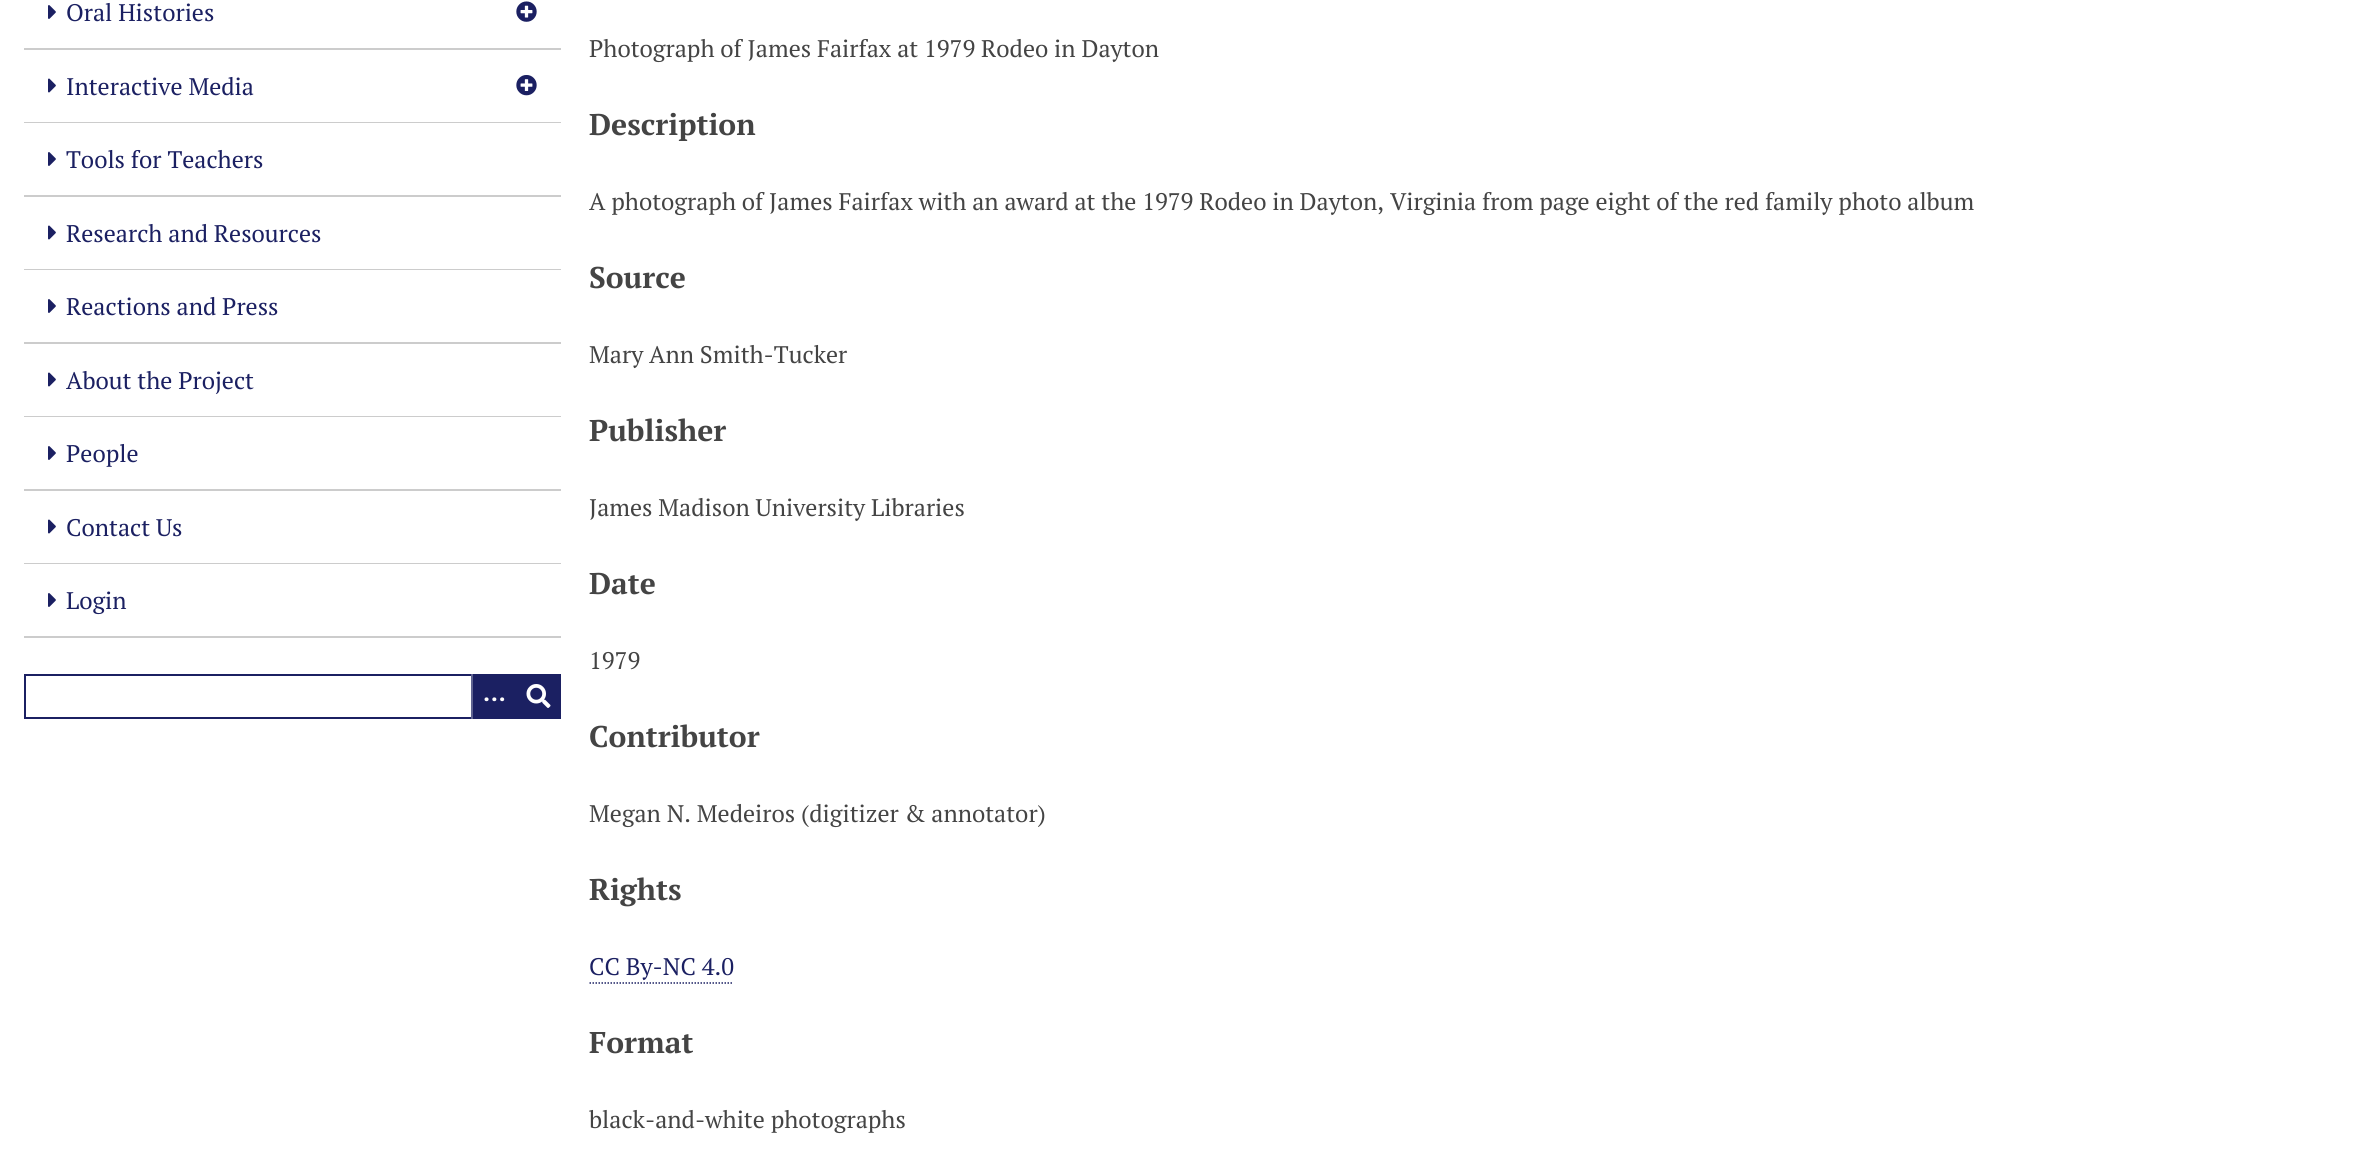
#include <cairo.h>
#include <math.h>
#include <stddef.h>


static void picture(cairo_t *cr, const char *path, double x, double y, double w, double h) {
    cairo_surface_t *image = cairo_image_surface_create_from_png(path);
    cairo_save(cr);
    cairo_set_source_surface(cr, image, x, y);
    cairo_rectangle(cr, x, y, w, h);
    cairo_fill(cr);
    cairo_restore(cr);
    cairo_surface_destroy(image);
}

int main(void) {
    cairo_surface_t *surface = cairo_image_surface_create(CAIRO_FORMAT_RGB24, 2364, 1153);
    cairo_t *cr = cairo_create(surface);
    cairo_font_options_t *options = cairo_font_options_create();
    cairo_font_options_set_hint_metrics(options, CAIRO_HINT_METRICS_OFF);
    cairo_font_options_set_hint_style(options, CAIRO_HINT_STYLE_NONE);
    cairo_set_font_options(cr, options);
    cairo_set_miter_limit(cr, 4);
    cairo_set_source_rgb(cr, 1, 1, 1);
    cairo_paint(cr);
    cairo_set_source_rgb(cr, 0.8, 0.8, 0.8);
    cairo_rectangle(cr, 24, 48, 537, 2);
    cairo_fill(cr);
    picture(cr, "img1.png", 48, 5, 8, 14);
    cairo_select_font_face(cr, "PT Serif", CAIRO_FONT_SLANT_NORMAL, CAIRO_FONT_WEIGHT_NORMAL);
    cairo_set_font_size(cr, 24);
    cairo_set_source_rgb(cr, 0.106, 0.125, 0.384);
    cairo_move_to(cr, 66, 21);
    cairo_show_text(cr, "Oral Histories");
    picture(cr, "img2.png", 516, 1, 21, 21);
    cairo_set_source_rgb(cr, 0.8, 0.8, 0.8);
    cairo_rectangle(cr, 24, 122, 537, 1);
    cairo_fill(cr);
    picture(cr, "img3.png", 48, 78, 8, 15);
    cairo_set_source_rgb(cr, 0.106, 0.125, 0.384);
    cairo_move_to(cr, 66, 95);
    cairo_show_text(cr, "Interactive Media");
    picture(cr, "img4.png", 516, 75, 21, 21);
    cairo_set_source_rgb(cr, 0.8, 0.8, 0.8);
    cairo_rectangle(cr, 24, 195, 537, 2);
    cairo_fill(cr);
    picture(cr, "img1.png", 48, 152, 8, 14);
    cairo_set_source_rgb(cr, 0.106, 0.125, 0.384);
    cairo_move_to(cr, 66, 168);
    cairo_show_text(cr, "Tools for Teachers");
    cairo_set_source_rgb(cr, 0.8, 0.8, 0.8);
    cairo_rectangle(cr, 24, 269, 537, 1);
    cairo_fill(cr);
    picture(cr, "img3.png", 48, 225, 8, 15);
    cairo_set_source_rgb(cr, 0.106, 0.125, 0.384);
    cairo_move_to(cr, 66, 242);
    cairo_show_text(cr, "Research and Resources");
    cairo_set_source_rgb(cr, 0.8, 0.8, 0.8);
    cairo_rectangle(cr, 24, 342, 537, 2);
    cairo_fill(cr);
    picture(cr, "img1.png", 48, 299, 8, 14);
    cairo_set_source_rgb(cr, 0.106, 0.125, 0.384);
    cairo_move_to(cr, 66, 315);
    cairo_show_text(cr, "Reactions and Press");
    cairo_set_source_rgb(cr, 0.8, 0.8, 0.8);
    cairo_rectangle(cr, 24, 416, 537, 1);
    cairo_fill(cr);
    picture(cr, "img3.png", 48, 372, 8, 15);
    cairo_set_source_rgb(cr, 0.106, 0.125, 0.384);
    cairo_move_to(cr, 66, 389);
    cairo_show_text(cr, "About the Project");
    cairo_set_source_rgb(cr, 0.8, 0.8, 0.8);
    cairo_rectangle(cr, 24, 489, 537, 2);
    cairo_fill(cr);
    picture(cr, "img1.png", 48, 446, 8, 14);
    cairo_set_source_rgb(cr, 0.106, 0.125, 0.384);
    cairo_move_to(cr, 66, 462);
    cairo_show_text(cr, "People");
    cairo_set_source_rgb(cr, 0.8, 0.8, 0.8);
    cairo_rectangle(cr, 24, 563, 537, 1);
    cairo_fill(cr);
    picture(cr, "img3.png", 48, 519, 8, 15);
    cairo_set_source_rgb(cr, 0.106, 0.125, 0.384);
    cairo_move_to(cr, 66, 536);
    cairo_show_text(cr, "Contact Us");
    cairo_set_source_rgb(cr, 0.8, 0.8, 0.8);
    cairo_rectangle(cr, 24, 636, 537, 2);
    cairo_fill(cr);
    picture(cr, "img1.png", 48, 593, 8, 14);
    cairo_set_source_rgb(cr, 0.106, 0.125, 0.384);
    cairo_move_to(cr, 66, 609);
    cairo_show_text(cr, "Login");
    cairo_rectangle(cr, 25, 675, 535, 43);
    cairo_stroke(cr);
    cairo_rectangle(cr, 473, 676, 86, 41);
    cairo_fill(cr);
    cairo_set_source_rgb(cr, 0.373, 0.388, 0.569);
    cairo_rectangle(cr, 471, 674, 2, 45);
    cairo_fill(cr);
    cairo_select_font_face(cr, "PT Serif", CAIRO_FONT_SLANT_NORMAL, CAIRO_FONT_WEIGHT_BOLD);
    cairo_set_source_rgb(cr, 1, 1, 1);
    cairo_move_to(cr, 483, 701);
    cairo_show_text(cr, "…");
    picture(cr, "img5.png", 526, 684, 25, 24);
    cairo_select_font_face(cr, "PT Serif", CAIRO_FONT_SLANT_NORMAL, CAIRO_FONT_WEIGHT_NORMAL);
    cairo_set_source_rgb(cr, 0.267, 0.267, 0.267);
    cairo_move_to(cr, 589, 57);
    cairo_show_text(cr, "Photograph of James Fairfax at 1979 Rodeo in Dayton");
    cairo_select_font_face(cr, "PT Serif", CAIRO_FONT_SLANT_NORMAL, CAIRO_FONT_WEIGHT_BOLD);
    cairo_set_font_size(cr, 30);
    cairo_move_to(cr, 589, 135);
    cairo_show_text(cr, "Description");
    cairo_select_font_face(cr, "PT Serif", CAIRO_FONT_SLANT_NORMAL, CAIRO_FONT_WEIGHT_NORMAL);
    cairo_set_font_size(cr, 24);
    cairo_move_to(cr, 589, 210);
    cairo_show_text(cr, "A photograph of James Fairfax with an award at the 1979 Rodeo in Dayton, Virginia from page eight of the red family photo album");
    cairo_select_font_face(cr, "PT Serif", CAIRO_FONT_SLANT_NORMAL, CAIRO_FONT_WEIGHT_BOLD);
    cairo_set_font_size(cr, 30);
    cairo_move_to(cr, 589, 288);
    cairo_show_text(cr, "Source");
    cairo_select_font_face(cr, "PT Serif", CAIRO_FONT_SLANT_NORMAL, CAIRO_FONT_WEIGHT_NORMAL);
    cairo_set_font_size(cr, 24);
    cairo_move_to(cr, 589, 363);
    cairo_show_text(cr, "Mary Ann Smith-Tucker");
    cairo_select_font_face(cr, "PT Serif", CAIRO_FONT_SLANT_NORMAL, CAIRO_FONT_WEIGHT_BOLD);
    cairo_set_font_size(cr, 30);
    cairo_move_to(cr, 589, 441);
    cairo_show_text(cr, "Publisher");
    cairo_select_font_face(cr, "PT Serif", CAIRO_FONT_SLANT_NORMAL, CAIRO_FONT_WEIGHT_NORMAL);
    cairo_set_font_size(cr, 24);
    cairo_move_to(cr, 589, 516);
    cairo_show_text(cr, "James Madison University Libraries");
    cairo_select_font_face(cr, "PT Serif", CAIRO_FONT_SLANT_NORMAL, CAIRO_FONT_WEIGHT_BOLD);
    cairo_set_font_size(cr, 30);
    cairo_move_to(cr, 589, 594);
    cairo_show_text(cr, "Date");
    cairo_select_font_face(cr, "PT Serif", CAIRO_FONT_SLANT_NORMAL, CAIRO_FONT_WEIGHT_NORMAL);
    cairo_set_font_size(cr, 24);
    cairo_move_to(cr, 589, 669);
    cairo_show_text(cr, "1979");
    cairo_select_font_face(cr, "PT Serif", CAIRO_FONT_SLANT_NORMAL, CAIRO_FONT_WEIGHT_BOLD);
    cairo_set_font_size(cr, 30);
    cairo_move_to(cr, 589, 747);
    cairo_show_text(cr, "Contributor");
    cairo_select_font_face(cr, "PT Serif", CAIRO_FONT_SLANT_NORMAL, CAIRO_FONT_WEIGHT_NORMAL);
    cairo_set_font_size(cr, 24);
    cairo_move_to(cr, 589, 822);
    cairo_show_text(cr, "Megan N. Medeiros (digitizer & annotator)");
    cairo_select_font_face(cr, "PT Serif", CAIRO_FONT_SLANT_NORMAL, CAIRO_FONT_WEIGHT_BOLD);
    cairo_set_font_size(cr, 30);
    cairo_move_to(cr, 589, 900);
    cairo_show_text(cr, "Rights");
    cairo_select_font_face(cr, "PT Serif", CAIRO_FONT_SLANT_NORMAL, CAIRO_FONT_WEIGHT_NORMAL);
    cairo_set_font_size(cr, 24);
    cairo_set_source_rgb(cr, 0.106, 0.125, 0.384);
    cairo_move_to(cr, 589, 975);
    cairo_show_text(cr, "CC By-NC 4.0");
    cairo_new_path(cr);
    cairo_move_to(cr, 589.5, 983);
    cairo_line_to(cr, 733.5, 983);
    cairo_set_line_width(cr, 1.5);
    cairo_set_dash(cr, (double[]){1.5, 1.5}, 2, 0);
    cairo_stroke(cr);
    cairo_select_font_face(cr, "PT Serif", CAIRO_FONT_SLANT_NORMAL, CAIRO_FONT_WEIGHT_BOLD);
    cairo_set_font_size(cr, 30);
    cairo_set_source_rgb(cr, 0.267, 0.267, 0.267);
    cairo_move_to(cr, 589, 1053);
    cairo_show_text(cr, "Format");
    cairo_select_font_face(cr, "PT Serif", CAIRO_FONT_SLANT_NORMAL, CAIRO_FONT_WEIGHT_NORMAL);
    cairo_set_font_size(cr, 24);
    cairo_move_to(cr, 589, 1128);
    cairo_show_text(cr, "black-and-white photographs");
    cairo_surface_write_to_png(surface, "page.png");
    cairo_font_options_destroy(options);
    cairo_destroy(cr);
    cairo_surface_destroy(surface);
    return 0;
}
